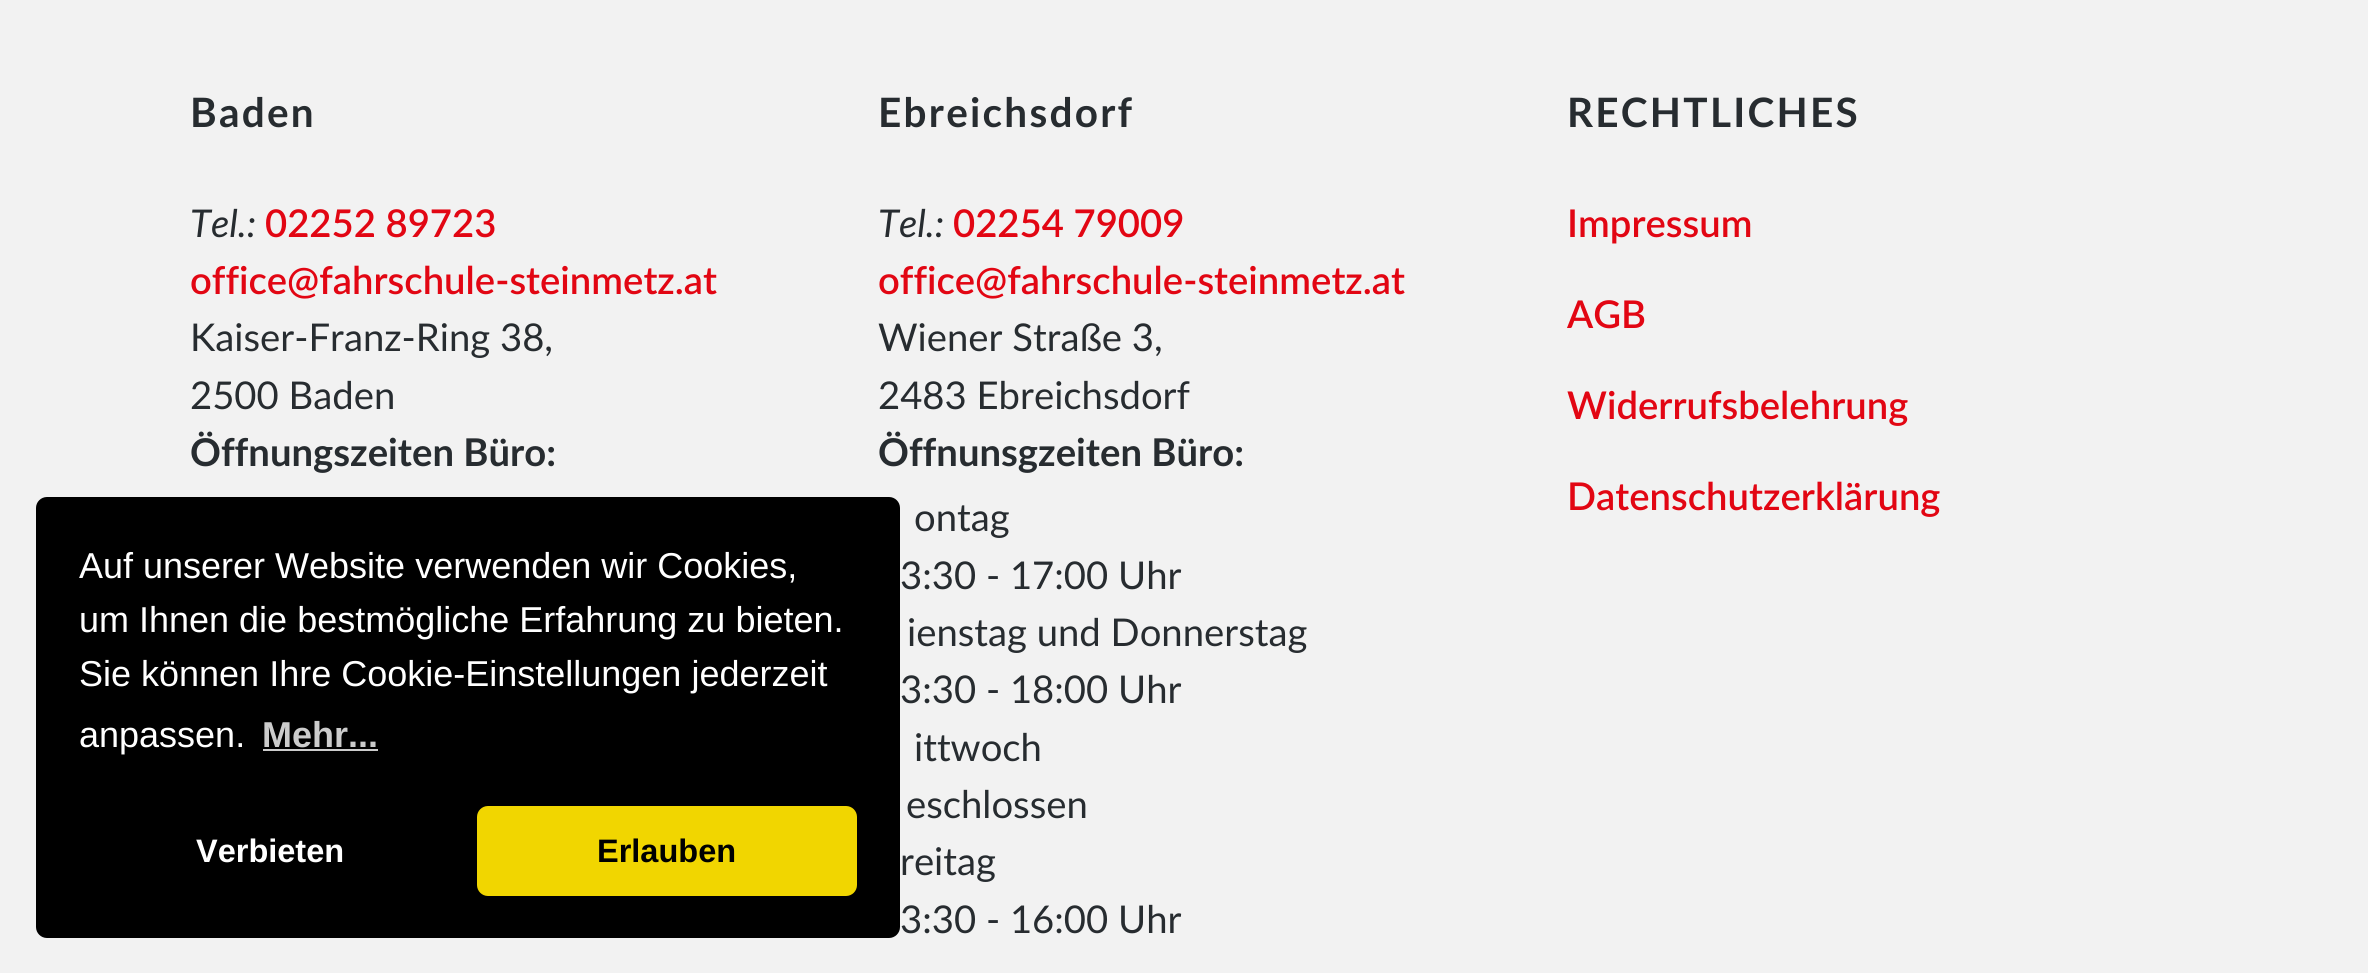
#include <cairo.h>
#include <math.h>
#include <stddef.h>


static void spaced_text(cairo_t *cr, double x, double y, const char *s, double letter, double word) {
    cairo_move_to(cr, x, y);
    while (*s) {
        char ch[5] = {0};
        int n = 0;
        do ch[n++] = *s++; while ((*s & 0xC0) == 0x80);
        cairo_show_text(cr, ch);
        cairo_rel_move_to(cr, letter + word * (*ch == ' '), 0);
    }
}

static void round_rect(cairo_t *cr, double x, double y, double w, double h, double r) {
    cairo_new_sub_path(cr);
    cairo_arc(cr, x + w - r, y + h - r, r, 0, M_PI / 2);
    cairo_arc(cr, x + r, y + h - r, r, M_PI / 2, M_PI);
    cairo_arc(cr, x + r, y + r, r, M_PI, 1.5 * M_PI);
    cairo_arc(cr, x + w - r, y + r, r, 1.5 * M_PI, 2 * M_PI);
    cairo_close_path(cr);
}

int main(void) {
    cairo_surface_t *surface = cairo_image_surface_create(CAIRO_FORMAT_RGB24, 2368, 973);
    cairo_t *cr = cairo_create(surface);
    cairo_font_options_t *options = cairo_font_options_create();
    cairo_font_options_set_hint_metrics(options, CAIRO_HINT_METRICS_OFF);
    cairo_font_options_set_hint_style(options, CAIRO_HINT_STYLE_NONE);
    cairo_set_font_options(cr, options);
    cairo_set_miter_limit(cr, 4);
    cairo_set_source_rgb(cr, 0.949, 0.949, 0.949);
    cairo_paint(cr);
    cairo_select_font_face(cr, "Lato", CAIRO_FONT_SLANT_NORMAL, CAIRO_FONT_WEIGHT_BOLD);
    cairo_set_font_size(cr, 40.5);
    cairo_set_source_rgb(cr, 0.153, 0.173, 0.188);
    spaced_text(cr, 190, 127, "Baden", 2.25, 0);
    cairo_select_font_face(cr, "Lato", CAIRO_FONT_SLANT_ITALIC, CAIRO_FONT_WEIGHT_NORMAL);
    cairo_set_font_size(cr, 38.25);
    cairo_move_to(cr, 190, 237);
    cairo_show_text(cr, "Tel.:");
    cairo_select_font_face(cr, "Lato SemiBold", CAIRO_FONT_SLANT_NORMAL, CAIRO_FONT_WEIGHT_NORMAL);
    cairo_set_source_rgb(cr, 0.886, 0.027, 0.078);
    cairo_move_to(cr, 265, 237);
    cairo_show_text(cr, "02252 89723");
    cairo_move_to(cr, 190, 294);
    cairo_show_text(cr, "office@fahrschule-steinmetz.at");
    cairo_select_font_face(cr, "Lato", CAIRO_FONT_SLANT_NORMAL, CAIRO_FONT_WEIGHT_NORMAL);
    cairo_set_source_rgb(cr, 0.153, 0.173, 0.188);
    cairo_move_to(cr, 190, 351);
    cairo_show_text(cr, "Kaiser-Franz-Ring 38,");
    cairo_move_to(cr, 190, 409);
    cairo_show_text(cr, "2500 Baden");
    cairo_select_font_face(cr, "Lato", CAIRO_FONT_SLANT_NORMAL, CAIRO_FONT_WEIGHT_BOLD);
    cairo_move_to(cr, 190, 466);
    cairo_show_text(cr, "Öffnungszeiten Büro:");
    cairo_set_font_size(cr, 40.5);
    spaced_text(cr, 878, 127, "Ebreichsdorf", 2.25, 0);
    cairo_select_font_face(cr, "Lato", CAIRO_FONT_SLANT_ITALIC, CAIRO_FONT_WEIGHT_NORMAL);
    cairo_set_font_size(cr, 38.25);
    cairo_move_to(cr, 878, 237);
    cairo_show_text(cr, "Tel.:");
    cairo_select_font_face(cr, "Lato SemiBold", CAIRO_FONT_SLANT_NORMAL, CAIRO_FONT_WEIGHT_NORMAL);
    cairo_set_source_rgb(cr, 0.886, 0.027, 0.078);
    cairo_move_to(cr, 953, 237);
    cairo_show_text(cr, "02254 79009");
    cairo_move_to(cr, 878, 294);
    cairo_show_text(cr, "office@fahrschule-steinmetz.at");
    cairo_select_font_face(cr, "Lato", CAIRO_FONT_SLANT_NORMAL, CAIRO_FONT_WEIGHT_NORMAL);
    cairo_set_source_rgb(cr, 0.153, 0.173, 0.188);
    cairo_move_to(cr, 878, 351);
    cairo_show_text(cr, "Wiener Straße 3,");
    cairo_move_to(cr, 878, 409);
    cairo_show_text(cr, "2483 Ebreichsdorf");
    cairo_select_font_face(cr, "Lato", CAIRO_FONT_SLANT_NORMAL, CAIRO_FONT_WEIGHT_BOLD);
    cairo_move_to(cr, 878, 466);
    cairo_show_text(cr, "Öffnunsgzeiten Büro:");
    cairo_select_font_face(cr, "Lato", CAIRO_FONT_SLANT_NORMAL, CAIRO_FONT_WEIGHT_NORMAL);
    cairo_move_to(cr, 914, 531);
    cairo_show_text(cr, "ontag");
    cairo_move_to(cr, 900, 589);
    cairo_show_text(cr, "3:30 - 17:00 Uhr");
    cairo_move_to(cr, 907, 646);
    cairo_show_text(cr, "ienstag und Donnerstag");
    cairo_move_to(cr, 900, 703);
    cairo_show_text(cr, "3:30 - 18:00 Uhr");
    cairo_move_to(cr, 914, 761);
    cairo_show_text(cr, "ittwoch");
    cairo_move_to(cr, 906, 818);
    cairo_show_text(cr, "eschlossen");
    cairo_move_to(cr, 900, 875);
    cairo_show_text(cr, "reitag");
    cairo_move_to(cr, 900, 933);
    cairo_show_text(cr, "3:30 - 16:00 Uhr");
    cairo_select_font_face(cr, "Lato", CAIRO_FONT_SLANT_NORMAL, CAIRO_FONT_WEIGHT_BOLD);
    cairo_set_font_size(cr, 40.5);
    spaced_text(cr, 1567, 127, "RECHTLICHES", 2.25, 0);
    cairo_select_font_face(cr, "Lato SemiBold", CAIRO_FONT_SLANT_NORMAL, CAIRO_FONT_WEIGHT_NORMAL);
    cairo_set_font_size(cr, 38.25);
    cairo_set_source_rgb(cr, 0.886, 0.027, 0.078);
    cairo_move_to(cr, 1567, 237);
    cairo_show_text(cr, "Impressum");
    cairo_move_to(cr, 1567, 328);
    cairo_show_text(cr, "AGB");
    cairo_move_to(cr, 1567, 419);
    cairo_show_text(cr, "Widerrufsbelehrung");
    cairo_move_to(cr, 1567, 510);
    cairo_show_text(cr, "Datenschutzerklärung");
    cairo_set_source_rgb(cr, 0, 0, 0);
    round_rect(cr, 36, 497, 864, 441, 11);
    cairo_fill(cr);
    cairo_select_font_face(cr, "Liberation Sans", CAIRO_FONT_SLANT_NORMAL, CAIRO_FONT_WEIGHT_NORMAL);
    cairo_set_font_size(cr, 36);
    cairo_set_source_rgb(cr, 1, 1, 1);
    cairo_move_to(cr, 79, 578);
    cairo_show_text(cr, "Auf unserer Website verwenden wir Cookies,");
    cairo_move_to(cr, 79, 632);
    cairo_show_text(cr, "um Ihnen die bestmögliche Erfahrung zu bieten.");
    cairo_move_to(cr, 79, 686);
    cairo_show_text(cr, "Sie können Ihre Cookie-Einstellungen jederzeit");
    cairo_move_to(cr, 79, 747);
    cairo_show_text(cr, "anpassen.");
    cairo_select_font_face(cr, "Liberation Sans", CAIRO_FONT_SLANT_NORMAL, CAIRO_FONT_WEIGHT_BOLD);
    cairo_set_source_rgb(cr, 0.8, 0.8, 0.8);
    cairo_move_to(cr, 262, 747);
    cairo_show_text(cr, "Mehr...");
    cairo_rectangle(cr, 263, 749, 115, 2);
    cairo_fill(cr);
    cairo_set_font_size(cr, 32.5);
    cairo_set_source_rgb(cr, 1, 1, 1);
    cairo_move_to(cr, 196, 862);
    cairo_show_text(cr, "Verbieten");
    cairo_set_source_rgb(cr, 0.945, 0.839, 0);
    round_rect(cr, 477, 806, 380, 90, 11);
    cairo_fill(cr);
    cairo_set_source_rgb(cr, 0, 0, 0);
    cairo_move_to(cr, 597, 862);
    cairo_show_text(cr, "Erlauben");
    cairo_surface_write_to_png(surface, "page.png");
    cairo_font_options_destroy(options);
    cairo_destroy(cr);
    cairo_surface_destroy(surface);
    return 0;
}
